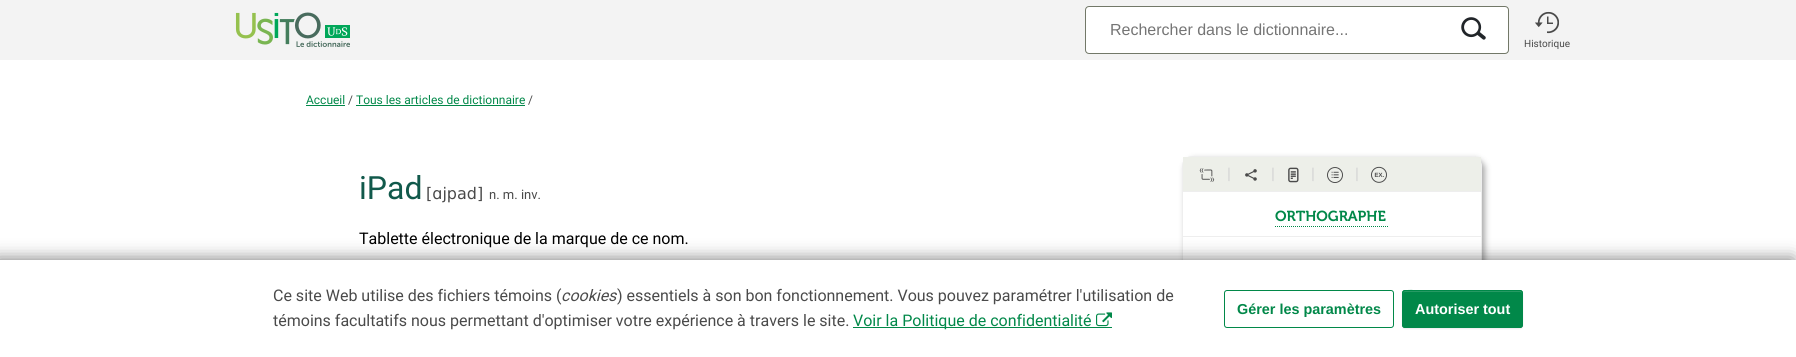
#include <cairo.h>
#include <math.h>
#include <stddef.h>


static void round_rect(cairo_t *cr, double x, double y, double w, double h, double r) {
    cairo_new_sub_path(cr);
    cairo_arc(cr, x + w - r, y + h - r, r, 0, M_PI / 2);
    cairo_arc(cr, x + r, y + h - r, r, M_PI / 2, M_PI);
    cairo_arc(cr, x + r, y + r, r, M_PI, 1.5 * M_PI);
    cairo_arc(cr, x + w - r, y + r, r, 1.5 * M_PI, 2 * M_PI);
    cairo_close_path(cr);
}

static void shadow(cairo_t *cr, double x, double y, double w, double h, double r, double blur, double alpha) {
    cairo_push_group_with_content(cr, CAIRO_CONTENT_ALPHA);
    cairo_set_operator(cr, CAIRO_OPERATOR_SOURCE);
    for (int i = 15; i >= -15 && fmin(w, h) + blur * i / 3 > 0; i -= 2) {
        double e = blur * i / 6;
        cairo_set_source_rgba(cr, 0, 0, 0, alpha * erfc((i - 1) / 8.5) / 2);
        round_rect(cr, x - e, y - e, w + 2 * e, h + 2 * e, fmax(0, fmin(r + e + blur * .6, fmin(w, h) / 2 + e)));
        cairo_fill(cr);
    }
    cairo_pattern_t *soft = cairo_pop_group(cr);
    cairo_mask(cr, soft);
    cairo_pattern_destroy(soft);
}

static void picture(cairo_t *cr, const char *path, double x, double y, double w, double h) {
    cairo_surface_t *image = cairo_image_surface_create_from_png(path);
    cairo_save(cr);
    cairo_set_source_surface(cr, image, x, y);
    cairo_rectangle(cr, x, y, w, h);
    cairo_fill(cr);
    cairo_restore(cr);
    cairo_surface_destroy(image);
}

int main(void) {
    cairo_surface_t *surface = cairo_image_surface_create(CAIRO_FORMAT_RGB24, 1796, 357);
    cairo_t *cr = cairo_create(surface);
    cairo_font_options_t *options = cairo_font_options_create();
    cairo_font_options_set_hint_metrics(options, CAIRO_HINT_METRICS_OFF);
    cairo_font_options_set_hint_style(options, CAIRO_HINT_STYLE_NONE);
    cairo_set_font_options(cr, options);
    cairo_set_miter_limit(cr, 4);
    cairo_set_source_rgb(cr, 1, 1, 1);
    cairo_paint(cr);
    cairo_set_source_rgb(cr, 0.953, 0.953, 0.953);
    cairo_rectangle(cr, 0, 0, 1796, 60);
    cairo_fill(cr);
    picture(cr, "img1.png", 235, 12, 115, 35);
    cairo_set_source_rgb(cr, 1, 1, 1);
    round_rect(cr, 1085.5, 6.5, 423, 47, 3.5);
    cairo_fill_preserve(cr);
    cairo_set_source_rgb(cr, 0.447, 0.471, 0.408);
    cairo_set_line_width(cr, 1);
    cairo_stroke(cr);
    cairo_select_font_face(cr, "Liberation Sans", CAIRO_FONT_SLANT_NORMAL, CAIRO_FONT_WEIGHT_NORMAL);
    cairo_set_font_size(cr, 16);
    cairo_set_source_rgb(cr, 0.459, 0.459, 0.459);
    cairo_move_to(cr, 1110, 35);
    cairo_show_text(cr, "Rechercher dans le dictionnaire...");
    picture(cr, "img2.png", 1461, 17, 25, 23);
    picture(cr, "img3.png", 1535, 11, 24, 23);
    cairo_select_font_face(cr, "Roboto", CAIRO_FONT_SLANT_NORMAL, CAIRO_FONT_WEIGHT_NORMAL);
    cairo_set_font_size(cr, 10);
    cairo_set_source_rgb(cr, 0.29, 0.29, 0.29);
    cairo_move_to(cr, 1524, 47);
    cairo_show_text(cr, "Historique");
    cairo_set_font_size(cr, 12);
    cairo_set_source_rgb(cr, 0.004, 0.533, 0.286);
    cairo_move_to(cr, 306, 104);
    cairo_show_text(cr, "Accueil");
    cairo_rectangle(cr, 306, 105, 39, 1);
    cairo_fill(cr);
    cairo_set_source_rgb(cr, 0.29, 0.29, 0.29);
    cairo_move_to(cr, 348, 104);
    cairo_show_text(cr, "/");
    cairo_set_source_rgb(cr, 0.004, 0.533, 0.286);
    cairo_move_to(cr, 356, 104);
    cairo_show_text(cr, "Tous les articles de dictionnaire");
    cairo_rectangle(cr, 356, 105, 169, 1);
    cairo_fill(cr);
    cairo_set_source_rgb(cr, 0.29, 0.29, 0.29);
    cairo_move_to(cr, 528, 104);
    cairo_show_text(cr, "/");
    cairo_set_font_size(cr, 32);
    cairo_set_source_rgb(cr, 0.067, 0.349, 0.294);
    cairo_move_to(cr, 359, 199);
    cairo_show_text(cr, "iPad");
    cairo_select_font_face(cr, "DejaVu Sans", CAIRO_FONT_SLANT_NORMAL, CAIRO_FONT_WEIGHT_NORMAL);
    cairo_set_font_size(cr, 16);
    cairo_set_source_rgb(cr, 0.29, 0.29, 0.29);
    cairo_move_to(cr, 426, 199);
    cairo_show_text(cr, "[ɑjpad]");
    cairo_select_font_face(cr, "Roboto", CAIRO_FONT_SLANT_NORMAL, CAIRO_FONT_WEIGHT_NORMAL);
    cairo_set_font_size(cr, 13);
    cairo_move_to(cr, 489, 199);
    cairo_show_text(cr, "n. m. inv.");
    cairo_set_font_size(cr, 16);
    cairo_set_source_rgb(cr, 0, 0, 0);
    cairo_move_to(cr, 359, 244);
    cairo_show_text(cr, "Tablette électronique de la marque de ce nom.");
    cairo_set_source_rgb(cr, 0.667, 0.667, 0.667);
    shadow(cr, 1185, 159, 300, 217, 10, 3, 1);
    cairo_set_source_rgb(cr, 1, 1, 1);
    round_rect(cr, 1182.5, 156.5, 299, 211, 9.5);
    cairo_fill_preserve(cr);
    cairo_set_source_rgb(cr, 0.933, 0.933, 0.933);
    cairo_stroke(cr);
    cairo_set_source_rgb(cr, 0.929, 0.937, 0.914);
    cairo_rectangle(cr, 1183, 157, 298, 34);
    cairo_fill(cr);
    picture(cr, "img4.png", 1199, 168, 16, 14);
    cairo_set_source_rgb(cr, 0.827, 0.827, 0.827);
    cairo_move_to(cr, 1227, 179);
    cairo_show_text(cr, "|");
    picture(cr, "img5.png", 1245, 169, 12, 12);
    cairo_move_to(cr, 1271, 179);
    cairo_show_text(cr, "|");
    picture(cr, "img6.png", 1288, 167, 11, 16);
    cairo_move_to(cr, 1311, 179);
    cairo_show_text(cr, "|");
    picture(cr, "img7.png", 1327, 167, 16, 16);
    cairo_move_to(cr, 1355, 179);
    cairo_show_text(cr, "|");
    picture(cr, "img8.png", 1371, 166, 16, 17);
    cairo_set_source_rgb(cr, 0.933, 0.933, 0.933);
    cairo_rectangle(cr, 1183, 191, 298, 1);
    cairo_fill(cr);
    cairo_select_font_face(cr, "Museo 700 SemiBold", CAIRO_FONT_SLANT_NORMAL, CAIRO_FONT_WEIGHT_NORMAL);
    cairo_set_font_size(cr, 14.5);
    cairo_set_source_rgb(cr, 0.004, 0.533, 0.286);
    cairo_move_to(cr, 1275, 221);
    cairo_show_text(cr, "ORTHOGRAPHE");
    cairo_new_path(cr);
    cairo_move_to(cr, 1275, 226.5);
    cairo_line_to(cr, 1389, 226.5);
    cairo_set_dash(cr, (double[]){1, 1}, 2, 0);
    cairo_stroke(cr);
    cairo_set_source_rgb(cr, 0.933, 0.933, 0.933);
    cairo_rectangle(cr, 1183, 236, 298, 1);
    cairo_fill(cr);
    cairo_set_source_rgb(cr, 0, 0, 0);
    shadow(cr, -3, 260, 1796, 97, 0, 9, 0.55);
    cairo_set_source_rgb(cr, 1, 1, 1);
    cairo_rectangle(cr, 0, 260, 1796, 97);
    cairo_fill(cr);
    cairo_select_font_face(cr, "Roboto", CAIRO_FONT_SLANT_NORMAL, CAIRO_FONT_WEIGHT_NORMAL);
    cairo_set_font_size(cr, 16);
    cairo_set_source_rgb(cr, 0.29, 0.29, 0.29);
    cairo_move_to(cr, 273, 301);
    cairo_show_text(cr, "Ce site Web utilise des fichiers témoins (");
    cairo_select_font_face(cr, "Roboto", CAIRO_FONT_SLANT_ITALIC, CAIRO_FONT_WEIGHT_NORMAL);
    cairo_move_to(cr, 561, 301);
    cairo_show_text(cr, "cookies");
    cairo_select_font_face(cr, "Roboto", CAIRO_FONT_SLANT_NORMAL, CAIRO_FONT_WEIGHT_NORMAL);
    cairo_move_to(cr, 617, 301);
    cairo_show_text(cr, ") essentiels à son bon fonctionnement. Vous pouvez paramétrer l'utilisation de");
    cairo_move_to(cr, 273, 326);
    cairo_show_text(cr, "témoins facultatifs nous permettant d'optimiser votre expérience à travers le site.");
    cairo_set_source_rgb(cr, 0.004, 0.533, 0.286);
    cairo_rectangle(cr, 853, 327, 259, 1);
    cairo_fill(cr);
    cairo_move_to(cr, 853, 326);
    cairo_show_text(cr, "Voir la Politique de confidentialité");
    picture(cr, "img9.png", 1096, 312, 16, 15);
    round_rect(cr, 1224.5, 290.5, 169, 37, 2.5);
    cairo_set_dash(cr, NULL, 0, 0);
    cairo_stroke(cr);
    cairo_select_font_face(cr, "Liberation Sans", CAIRO_FONT_SLANT_NORMAL, CAIRO_FONT_WEIGHT_BOLD);
    cairo_set_font_size(cr, 14.4);
    cairo_move_to(cr, 1237, 314);
    cairo_show_text(cr, "Gérer les paramètres");
    cairo_set_source_rgb(cr, 0, 0, 0);
    shadow(cr, 1402, 291, 121, 38, 3, 0.5, 0.07);
    cairo_set_source_rgb(cr, 0.004, 0.533, 0.286);
    round_rect(cr, 1402, 290, 121, 38, 3);
    cairo_fill(cr);
    cairo_set_source_rgb(cr, 0.153, 0.604, 0.392);
    cairo_new_path(cr);
    cairo_move_to(cr, 1405, 292);
    cairo_line_to(cr, 1520, 292);
    cairo_curve_to(cr, 1521, 292, 1522, 293, 1522, 294);
    cairo_curve_to(cr, 1522, 293, 1522, 292, 1521, 291);
    cairo_line_to(cr, 1424, 291);
    cairo_curve_to(cr, 1418, 291, 1403, 287, 1403, 294);
    cairo_curve_to(cr, 1403, 293, 1404, 292, 1405, 292);
    cairo_close_path(cr);
    cairo_fill(cr);
    round_rect(cr, 1402.5, 290.5, 120, 37, 2.5);
    cairo_set_source_rgb(cr, 0.004, 0.533, 0.286);
    cairo_stroke(cr);
    cairo_set_source_rgb(cr, 1, 1, 1);
    cairo_move_to(cr, 1415, 314);
    cairo_show_text(cr, "Autoriser tout");
    cairo_surface_write_to_png(surface, "page.png");
    cairo_font_options_destroy(options);
    cairo_destroy(cr);
    cairo_surface_destroy(surface);
    return 0;
}
